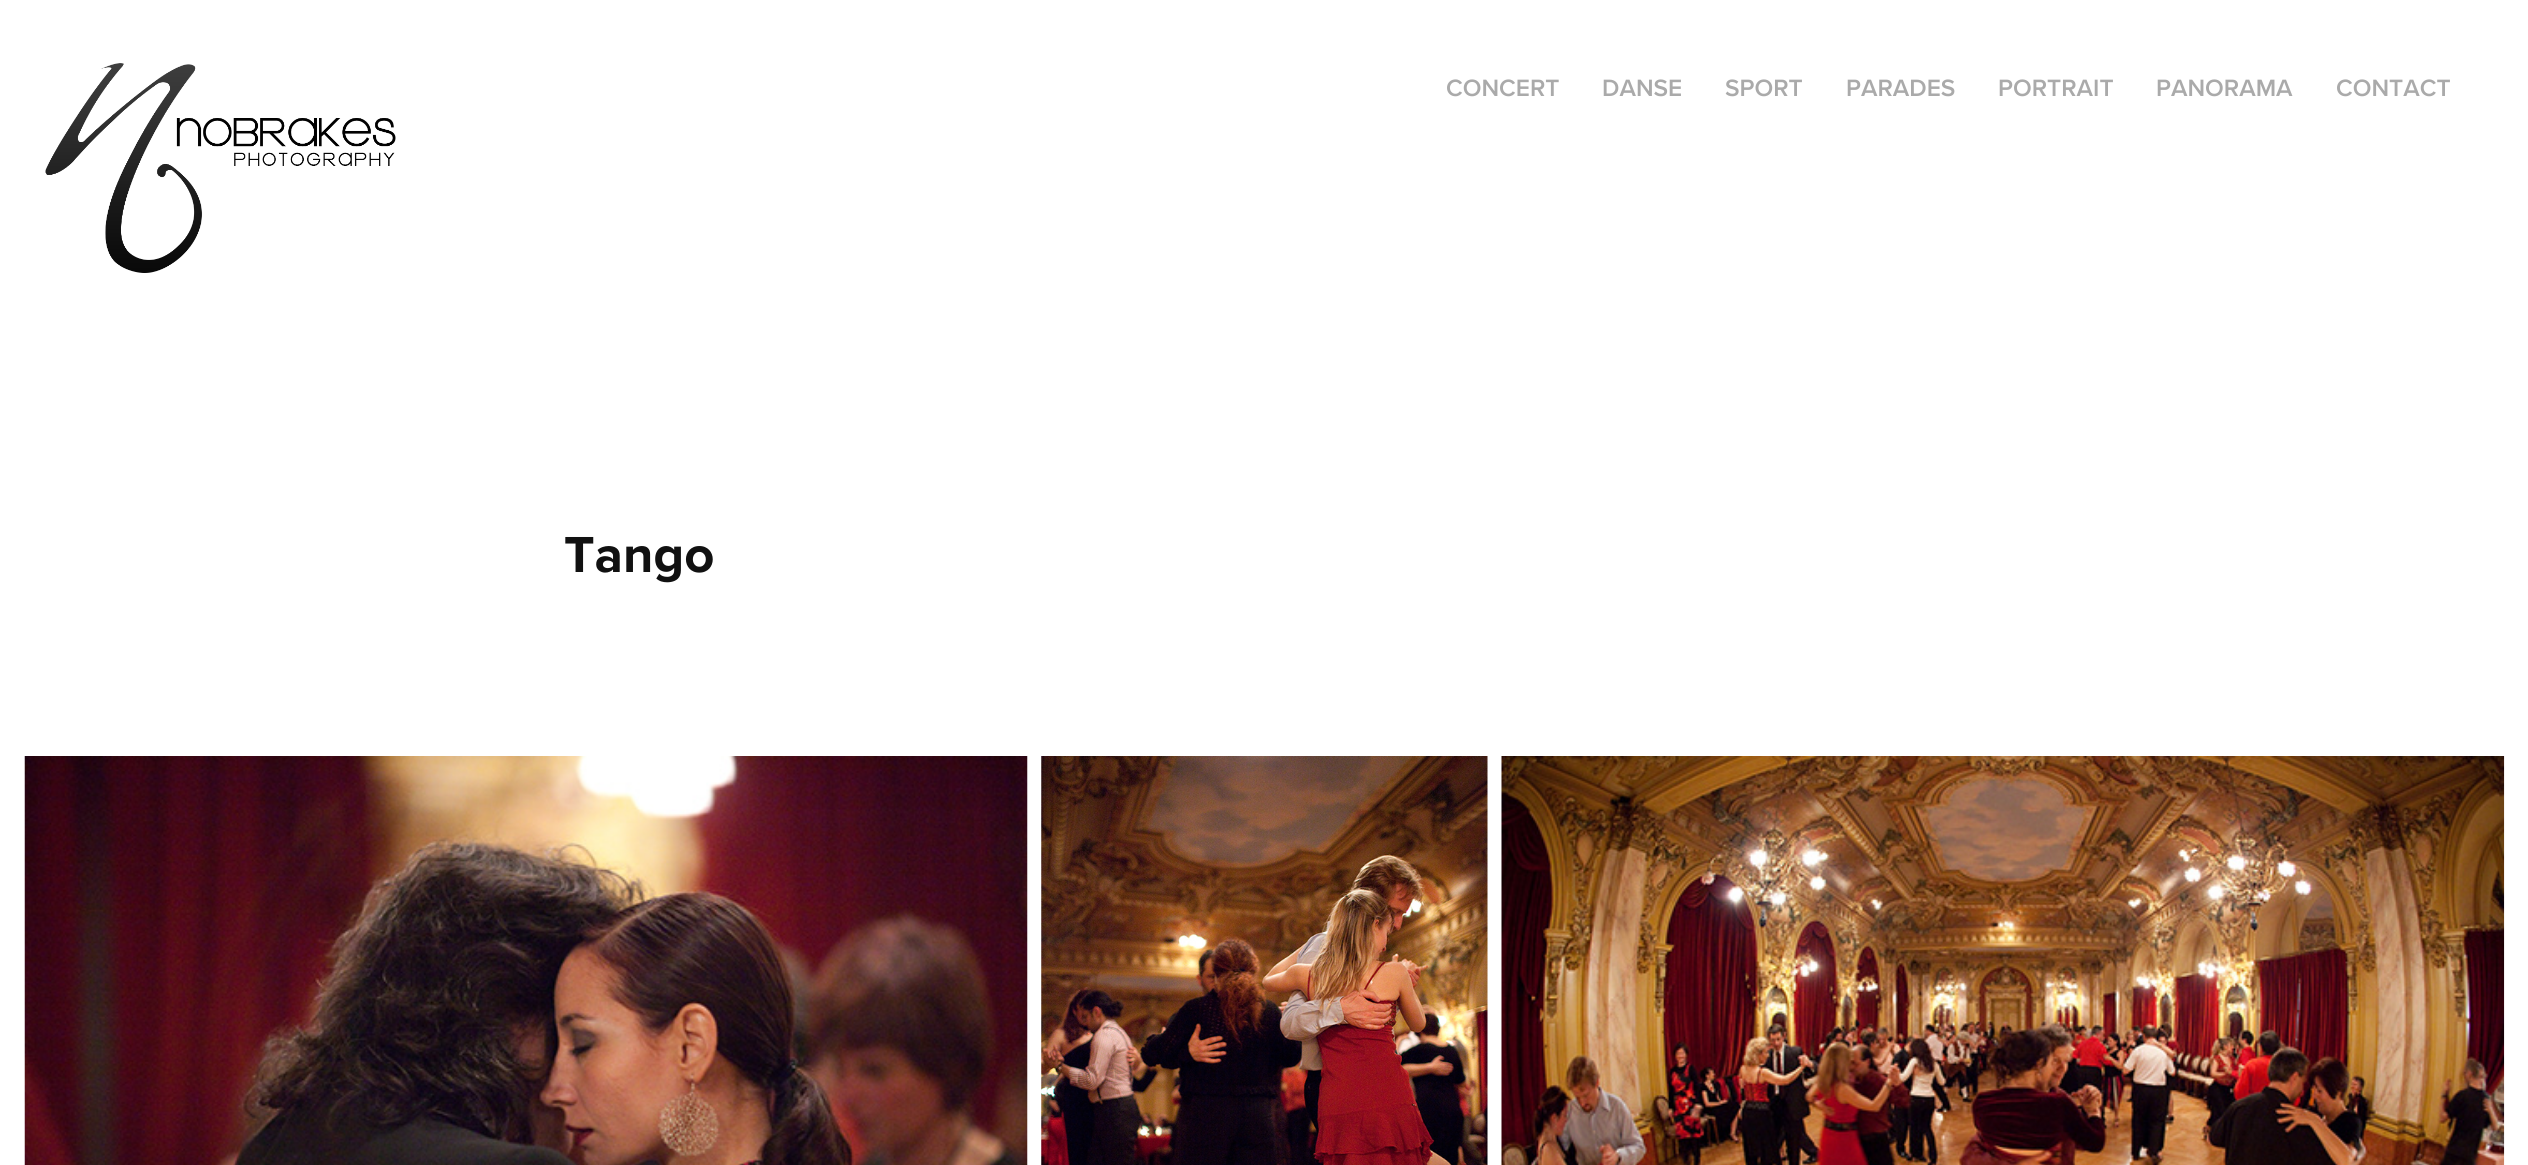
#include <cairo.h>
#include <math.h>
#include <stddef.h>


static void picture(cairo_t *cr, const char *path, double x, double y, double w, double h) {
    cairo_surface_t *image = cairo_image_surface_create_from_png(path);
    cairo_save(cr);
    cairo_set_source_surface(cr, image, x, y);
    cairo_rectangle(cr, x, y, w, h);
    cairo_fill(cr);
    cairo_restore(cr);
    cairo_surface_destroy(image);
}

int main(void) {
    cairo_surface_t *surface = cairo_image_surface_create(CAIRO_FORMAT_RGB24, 2528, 1165);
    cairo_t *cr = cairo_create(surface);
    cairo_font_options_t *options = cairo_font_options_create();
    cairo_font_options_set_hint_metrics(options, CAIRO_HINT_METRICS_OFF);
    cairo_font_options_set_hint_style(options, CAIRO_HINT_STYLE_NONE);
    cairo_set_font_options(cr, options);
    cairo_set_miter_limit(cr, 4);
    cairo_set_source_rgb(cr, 1, 1, 1);
    cairo_paint(cr);
    picture(cr, "img1.png", 45, 63, 351, 210);
    cairo_select_font_face(cr, "Proxima Nova SemiBold", CAIRO_FONT_SLANT_NORMAL, CAIRO_FONT_WEIGHT_NORMAL);
    cairo_set_font_size(cr, 24.5);
    cairo_set_source_rgb(cr, 0.667, 0.667, 0.667);
    cairo_move_to(cr, 1446, 96);
    cairo_show_text(cr, "CONCERT");
    cairo_move_to(cr, 1602, 96);
    cairo_show_text(cr, "DANSE");
    cairo_move_to(cr, 1725, 96);
    cairo_show_text(cr, "SPORT");
    cairo_move_to(cr, 1846, 96);
    cairo_show_text(cr, "PARADES");
    cairo_move_to(cr, 1998, 96);
    cairo_show_text(cr, "PORTRAIT");
    cairo_move_to(cr, 2156, 96);
    cairo_show_text(cr, "PANORAMA");
    cairo_move_to(cr, 2336, 96);
    cairo_show_text(cr, "CONTACT");
    cairo_select_font_face(cr, "Proxima Nova", CAIRO_FONT_SLANT_NORMAL, CAIRO_FONT_WEIGHT_BOLD);
    cairo_set_font_size(cr, 52.5);
    cairo_set_source_rgb(cr, 0.067, 0.067, 0.067);
    cairo_move_to(cr, 564, 572);
    cairo_show_text(cr, "Tango");
    picture(cr, "img2.png", 24, 756, 1004, 409);
    picture(cr, "img3.png", 1041, 756, 447, 409);
    picture(cr, "img4.png", 1501, 756, 1004, 409);
    cairo_surface_write_to_png(surface, "page.png");
    cairo_font_options_destroy(options);
    cairo_destroy(cr);
    cairo_surface_destroy(surface);
    return 0;
}
